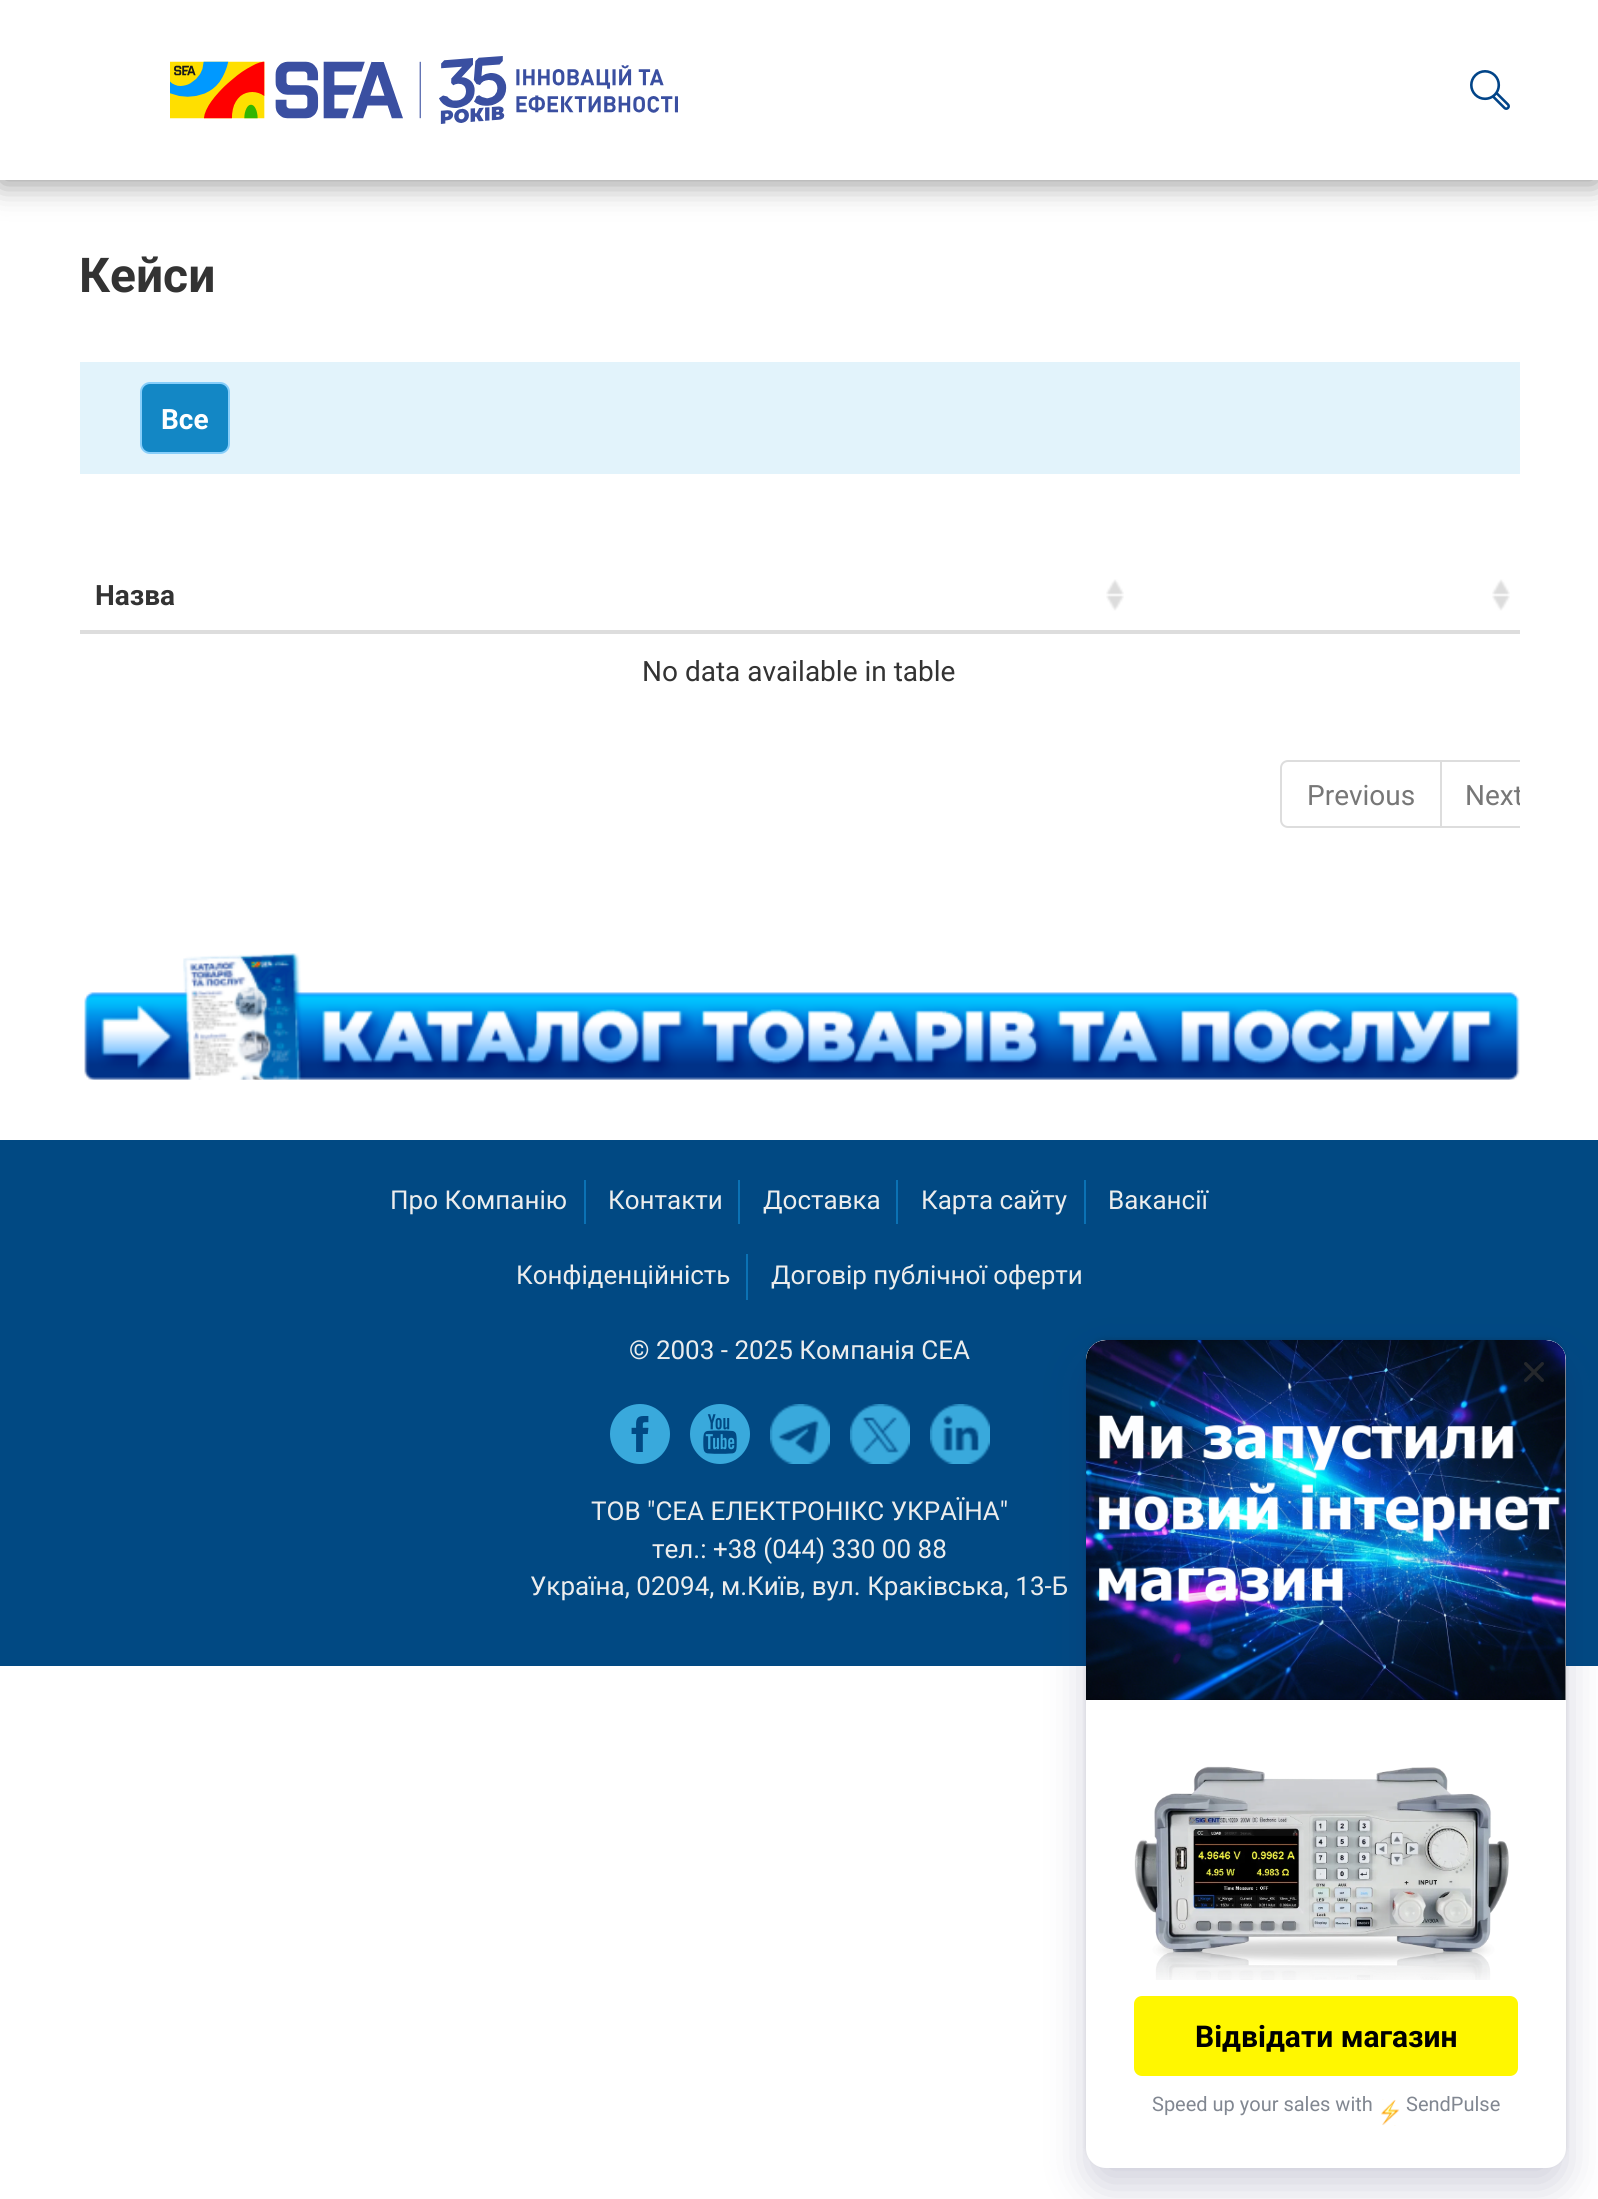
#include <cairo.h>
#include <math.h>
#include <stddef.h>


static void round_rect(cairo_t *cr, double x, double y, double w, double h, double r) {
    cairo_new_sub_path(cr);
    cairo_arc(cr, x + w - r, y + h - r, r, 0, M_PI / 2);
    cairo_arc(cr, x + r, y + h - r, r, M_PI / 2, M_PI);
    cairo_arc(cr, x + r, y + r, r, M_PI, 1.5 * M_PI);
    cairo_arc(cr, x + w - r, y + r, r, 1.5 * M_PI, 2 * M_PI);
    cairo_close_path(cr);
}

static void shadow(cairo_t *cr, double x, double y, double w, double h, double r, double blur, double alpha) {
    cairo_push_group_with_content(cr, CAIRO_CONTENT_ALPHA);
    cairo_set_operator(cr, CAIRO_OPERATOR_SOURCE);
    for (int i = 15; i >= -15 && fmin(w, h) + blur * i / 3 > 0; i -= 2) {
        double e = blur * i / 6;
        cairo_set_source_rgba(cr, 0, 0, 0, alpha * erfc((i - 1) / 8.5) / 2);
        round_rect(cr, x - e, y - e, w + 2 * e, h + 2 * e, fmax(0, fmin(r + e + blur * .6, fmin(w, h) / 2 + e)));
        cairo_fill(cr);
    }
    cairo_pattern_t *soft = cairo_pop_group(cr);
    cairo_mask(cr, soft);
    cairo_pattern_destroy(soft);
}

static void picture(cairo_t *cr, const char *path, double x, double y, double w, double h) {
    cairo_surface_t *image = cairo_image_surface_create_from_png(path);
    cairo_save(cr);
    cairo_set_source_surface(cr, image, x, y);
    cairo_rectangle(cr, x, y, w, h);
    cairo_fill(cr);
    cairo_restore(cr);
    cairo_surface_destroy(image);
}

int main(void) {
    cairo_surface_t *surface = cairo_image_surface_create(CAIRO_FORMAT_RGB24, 1598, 2199);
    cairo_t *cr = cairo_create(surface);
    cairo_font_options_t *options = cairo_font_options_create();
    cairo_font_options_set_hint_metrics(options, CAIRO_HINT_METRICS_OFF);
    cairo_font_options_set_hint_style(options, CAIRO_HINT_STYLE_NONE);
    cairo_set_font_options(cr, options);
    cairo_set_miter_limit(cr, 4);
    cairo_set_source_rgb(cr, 1, 1, 1);
    cairo_paint(cr);
    cairo_set_source_rgb(cr, 0, 0, 0);
    shadow(cr, 0, 4, 1598, 180, 0, 15, 0.41);
    cairo_set_source_rgb(cr, 1, 1, 1);
    cairo_rectangle(cr, 0, 0, 1598, 180);
    cairo_fill(cr);
    picture(cr, "img1.png", 170, 56, 508, 68);
    picture(cr, "img2.png", 1470, 70, 40, 40);
    cairo_select_font_face(cr, "Roboto", CAIRO_FONT_SLANT_NORMAL, CAIRO_FONT_WEIGHT_BOLD);
    cairo_set_font_size(cr, 48);
    cairo_set_source_rgb(cr, 0.2, 0.2, 0.2);
    cairo_move_to(cr, 79, 292);
    cairo_show_text(cr, "Кейси");
    cairo_set_source_rgb(cr, 0.886, 0.953, 0.984);
    cairo_rectangle(cr, 80, 362, 1440, 112);
    cairo_fill(cr);
    cairo_set_source_rgb(cr, 0.075, 0.529, 0.773);
    round_rect(cr, 141, 383, 88, 70, 9);
    cairo_fill_preserve(cr);
    cairo_set_source_rgb(cr, 0.529, 0.808, 0.98);
    cairo_stroke(cr);
    cairo_set_font_size(cr, 28);
    cairo_set_source_rgb(cr, 1, 1, 1);
    cairo_move_to(cr, 161, 429);
    cairo_show_text(cr, "Все");
    picture(cr, "img3.png", 1492, 579, 18, 32);
    cairo_set_source_rgb(cr, 0.867, 0.867, 0.867);
    cairo_rectangle(cr, 80, 630, 1440, 4);
    cairo_fill(cr);
    picture(cr, "img3.png", 1106, 579, 18, 32);
    cairo_set_source_rgb(cr, 0.2, 0.2, 0.2);
    cairo_move_to(cr, 95, 605);
    cairo_show_text(cr, "Назва");
    cairo_select_font_face(cr, "Roboto", CAIRO_FONT_SLANT_NORMAL, CAIRO_FONT_WEIGHT_NORMAL);
    cairo_move_to(cr, 642, 681);
    cairo_show_text(cr, "No data available in table");
    cairo_new_path(cr);
    cairo_move_to(cr, 1288, 761);
    cairo_line_to(cr, 1441, 761);
    cairo_line_to(cr, 1441, 827);
    cairo_line_to(cr, 1288, 827);
    cairo_curve_to(cr, 1284, 827, 1281, 824, 1281, 820);
    cairo_line_to(cr, 1281, 768);
    cairo_curve_to(cr, 1281, 764, 1284, 761, 1288, 761);
    cairo_close_path(cr);
    cairo_set_source_rgb(cr, 0.867, 0.867, 0.867);
    cairo_stroke(cr);
    cairo_set_source_rgb(cr, 0.467, 0.467, 0.467);
    cairo_move_to(cr, 1307, 805);
    cairo_show_text(cr, "Previous");
    cairo_save(cr);
    cairo_rectangle(cr, 80, 544, 1440, 334);
    cairo_clip(cr);
    cairo_new_path(cr);
    cairo_move_to(cr, 1441, 761);
    cairo_line_to(cr, 1542, 761);
    cairo_curve_to(cr, 1546, 761, 1549, 764, 1549, 768);
    cairo_line_to(cr, 1549, 820);
    cairo_curve_to(cr, 1549, 824, 1546, 827, 1542, 827);
    cairo_line_to(cr, 1441, 827);
    cairo_close_path(cr);
    cairo_set_source_rgb(cr, 0.867, 0.867, 0.867);
    cairo_stroke(cr);
    cairo_set_source_rgb(cr, 0.467, 0.467, 0.467);
    cairo_move_to(cr, 1465, 805);
    cairo_show_text(cr, "Next");
    cairo_restore(cr);
    picture(cr, "img4.png", 84, 953, 1436, 127);
    cairo_set_source_rgb(cr, 0.004, 0.286, 0.514);
    cairo_rectangle(cr, 0, 1140, 1598, 526);
    cairo_fill(cr);
    cairo_set_source_rgb(cr, 0.043, 0.447, 0.71);
    cairo_rectangle(cr, 584, 1180, 2, 44);
    cairo_fill(cr);
    cairo_set_font_size(cr, 26);
    cairo_set_source_rgb(cr, 0.925, 0.929, 0.929);
    cairo_move_to(cr, 390, 1209);
    cairo_show_text(cr, "Про Компанію");
    cairo_set_source_rgb(cr, 0.043, 0.447, 0.71);
    cairo_rectangle(cr, 738, 1180, 2, 44);
    cairo_fill(cr);
    cairo_set_source_rgb(cr, 0.925, 0.929, 0.929);
    cairo_move_to(cr, 608, 1209);
    cairo_show_text(cr, "Контакти");
    cairo_set_source_rgb(cr, 0.043, 0.447, 0.71);
    cairo_rectangle(cr, 896, 1180, 2, 44);
    cairo_fill(cr);
    cairo_set_source_rgb(cr, 0.925, 0.929, 0.929);
    cairo_move_to(cr, 763, 1209);
    cairo_show_text(cr, "Доставка");
    cairo_set_source_rgb(cr, 0.043, 0.447, 0.71);
    cairo_rectangle(cr, 1084, 1180, 2, 44);
    cairo_fill(cr);
    cairo_set_source_rgb(cr, 0.925, 0.929, 0.929);
    cairo_move_to(cr, 921, 1209);
    cairo_show_text(cr, "Карта сайту");
    cairo_move_to(cr, 1108, 1209);
    cairo_show_text(cr, "Вакансії");
    cairo_set_source_rgb(cr, 0.043, 0.447, 0.71);
    cairo_rectangle(cr, 746, 1254, 2, 46);
    cairo_fill(cr);
    cairo_set_source_rgb(cr, 0.925, 0.929, 0.929);
    cairo_move_to(cr, 516, 1284);
    cairo_show_text(cr, "Конфіденційність");
    cairo_move_to(cr, 771, 1284);
    cairo_show_text(cr, "Договір публічної оферти");
    cairo_move_to(cr, 629, 1359);
    cairo_show_text(cr, "© 2003 - 2025 Компанія СЕА");
    picture(cr, "img5.png", 610, 1404, 60, 60);
    picture(cr, "img6.png", 690, 1404, 60, 60);
    picture(cr, "img7.png", 770, 1404, 60, 60);
    picture(cr, "img8.png", 850, 1404, 60, 60);
    picture(cr, "img9.png", 930, 1404, 60, 60);
    cairo_move_to(cr, 591, 1520);
    cairo_show_text(cr, "ТОВ \"СЕА ЕЛЕКТРОНІКС УКРАЇНА\"");
    cairo_move_to(cr, 652, 1558);
    cairo_show_text(cr, "тел.: +38 (044) 330 00 88");
    cairo_move_to(cr, 530, 1595);
    cairo_show_text(cr, "Україна, 02094, м.Київ, вул. Краківська, 13-Б");
    cairo_set_source_rgb(cr, 0.122, 0.122, 0.341);
    shadow(cr, 1086, 1360, 480, 828, 20, 20, 0.2);
    cairo_set_source_rgb(cr, 0, 0, 0);
    shadow(cr, 1086, 1338, 480, 828, 20, 2, 0.1);
    cairo_set_source_rgb(cr, 1, 1, 1);
    round_rect(cr, 1086, 1340, 480, 828, 20);
    cairo_fill(cr);
    picture(cr, "img10.png", 1086, 1340, 480, 360);
    picture(cr, "img11.png", 1524, 1362, 20, 20);
    picture(cr, "img12.png", 1134, 1766, 375, 214);
    cairo_set_source_rgb(cr, 1, 0.965, 0);
    round_rect(cr, 1135, 1997, 382, 78, 7);
    cairo_fill_preserve(cr);
    cairo_stroke(cr);
    cairo_select_font_face(cr, "Roboto", CAIRO_FONT_SLANT_NORMAL, CAIRO_FONT_WEIGHT_BOLD);
    cairo_set_font_size(cr, 30);
    cairo_set_source_rgb(cr, 0, 0, 0);
    cairo_move_to(cr, 1195, 2047);
    cairo_show_text(cr, "Відвідати магазин");
    cairo_select_font_face(cr, "Roboto", CAIRO_FONT_SLANT_NORMAL, CAIRO_FONT_WEIGHT_NORMAL);
    cairo_set_font_size(cr, 20);
    cairo_set_source_rgb(cr, 0.506, 0.529, 0.569);
    cairo_move_to(cr, 1152, 2111);
    cairo_show_text(cr, "Speed up your sales with");
    picture(cr, "img13.png", 1381, 2099, 19, 27);
    cairo_move_to(cr, 1406, 2111);
    cairo_show_text(cr, "SendPulse");
    cairo_surface_write_to_png(surface, "page.png");
    cairo_font_options_destroy(options);
    cairo_destroy(cr);
    cairo_surface_destroy(surface);
    return 0;
}
